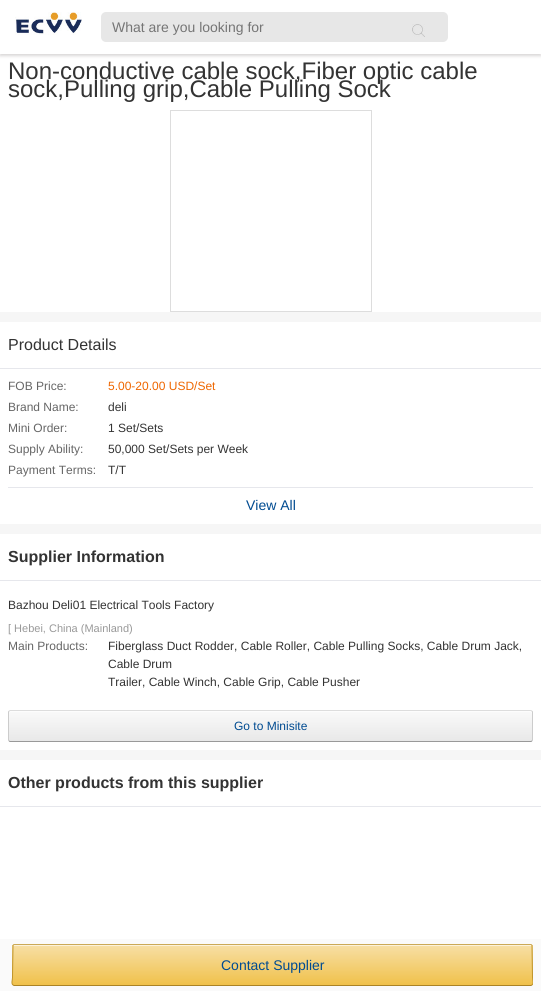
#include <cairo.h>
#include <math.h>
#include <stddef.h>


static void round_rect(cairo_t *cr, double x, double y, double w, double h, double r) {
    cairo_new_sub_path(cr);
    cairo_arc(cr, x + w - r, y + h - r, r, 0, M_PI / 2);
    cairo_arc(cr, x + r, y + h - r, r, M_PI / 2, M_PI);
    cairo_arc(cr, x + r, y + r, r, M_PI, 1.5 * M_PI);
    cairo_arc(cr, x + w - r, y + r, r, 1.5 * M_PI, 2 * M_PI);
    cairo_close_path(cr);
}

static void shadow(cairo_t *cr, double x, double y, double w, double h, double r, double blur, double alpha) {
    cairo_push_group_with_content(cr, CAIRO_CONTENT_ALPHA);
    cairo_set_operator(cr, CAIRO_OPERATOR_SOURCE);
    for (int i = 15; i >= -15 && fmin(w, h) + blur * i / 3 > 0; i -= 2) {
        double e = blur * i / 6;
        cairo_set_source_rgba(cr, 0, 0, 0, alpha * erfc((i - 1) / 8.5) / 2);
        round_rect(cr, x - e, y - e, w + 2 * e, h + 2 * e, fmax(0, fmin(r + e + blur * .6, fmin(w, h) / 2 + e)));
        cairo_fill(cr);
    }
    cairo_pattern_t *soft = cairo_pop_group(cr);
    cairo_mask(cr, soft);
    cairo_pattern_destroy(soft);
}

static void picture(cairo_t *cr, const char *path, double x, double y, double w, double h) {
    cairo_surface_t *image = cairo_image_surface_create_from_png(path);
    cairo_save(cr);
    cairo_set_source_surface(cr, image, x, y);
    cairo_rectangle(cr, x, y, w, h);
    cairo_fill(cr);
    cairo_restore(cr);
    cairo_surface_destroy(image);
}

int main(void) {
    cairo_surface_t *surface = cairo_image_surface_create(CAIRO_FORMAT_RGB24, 541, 991);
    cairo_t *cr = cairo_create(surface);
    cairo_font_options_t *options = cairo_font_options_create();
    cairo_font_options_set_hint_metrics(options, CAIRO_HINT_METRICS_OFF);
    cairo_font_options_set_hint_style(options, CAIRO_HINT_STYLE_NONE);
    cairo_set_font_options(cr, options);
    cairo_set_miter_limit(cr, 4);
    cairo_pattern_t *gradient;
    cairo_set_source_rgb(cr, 0.961, 0.961, 0.961);
    cairo_paint(cr);
    cairo_set_source_rgb(cr, 1, 1, 1);
    cairo_rectangle(cr, 0, 54, 541, 258);
    cairo_fill(cr);
    cairo_set_source_rgb(cr, 0.851, 0.843, 0.843);
    shadow(cr, 0, 2, 541, 54, 0, 1.5, 1);
    cairo_set_source_rgb(cr, 1, 1, 1);
    cairo_rectangle(cr, 0, 0, 541, 54);
    cairo_fill(cr);
    picture(cr, "img1.png", 15, 12, 67, 23);
    cairo_set_source_rgb(cr, 0.906, 0.906, 0.906);
    round_rect(cr, 101, 12, 347, 30, 5);
    cairo_fill(cr);
    cairo_select_font_face(cr, "Liberation Sans", CAIRO_FONT_SLANT_NORMAL, CAIRO_FONT_WEIGHT_NORMAL);
    cairo_set_font_size(cr, 14);
    cairo_set_source_rgb(cr, 0.459, 0.459, 0.459);
    cairo_move_to(cr, 112, 32);
    cairo_show_text(cr, "What are you looking for");
    picture(cr, "img2.png", 412, 24, 13, 13);
    cairo_set_font_size(cr, 24);
    cairo_set_source_rgb(cr, 0.2, 0.2, 0.2);
    cairo_move_to(cr, 8, 79);
    cairo_show_text(cr, "Non-conductive cable sock,Fiber optic cable");
    cairo_move_to(cr, 8, 97);
    cairo_show_text(cr, "sock,Pulling grip,Cable Pulling Sock");
    cairo_rectangle(cr, 170.5, 110.5, 201, 201);
    cairo_set_source_rgb(cr, 0.867, 0.867, 0.867);
    cairo_set_line_width(cr, 1);
    cairo_stroke(cr);
    cairo_set_source_rgb(cr, 1, 1, 1);
    cairo_rectangle(cr, 0, 322, 541, 46);
    cairo_fill(cr);
    cairo_set_source_rgb(cr, 0.902, 0.906, 0.922);
    cairo_rectangle(cr, 0, 368, 541, 1);
    cairo_fill(cr);
    cairo_set_font_size(cr, 16);
    cairo_set_source_rgb(cr, 0.2, 0.2, 0.2);
    cairo_move_to(cr, 8, 350);
    cairo_show_text(cr, "Product Details");
    cairo_set_source_rgb(cr, 1, 1, 1);
    cairo_rectangle(cr, 0, 369, 541, 155);
    cairo_fill(cr);
    cairo_set_font_size(cr, 12);
    cairo_set_source_rgb(cr, 0.4, 0.4, 0.4);
    cairo_move_to(cr, 8, 390);
    cairo_show_text(cr, "FOB Price:");
    cairo_set_source_rgb(cr, 0.933, 0.4, 0);
    cairo_move_to(cr, 108, 390);
    cairo_show_text(cr, "5.00-20.00 USD/Set");
    cairo_set_source_rgb(cr, 0.4, 0.4, 0.4);
    cairo_move_to(cr, 8, 411);
    cairo_show_text(cr, "Brand Name:");
    cairo_set_source_rgb(cr, 0.2, 0.2, 0.2);
    cairo_move_to(cr, 108, 411);
    cairo_show_text(cr, "deli");
    cairo_set_source_rgb(cr, 0.4, 0.4, 0.4);
    cairo_move_to(cr, 8, 432);
    cairo_show_text(cr, "Mini Order:");
    cairo_set_source_rgb(cr, 0.2, 0.2, 0.2);
    cairo_move_to(cr, 108, 432);
    cairo_show_text(cr, "1 Set/Sets");
    cairo_set_source_rgb(cr, 0.4, 0.4, 0.4);
    cairo_move_to(cr, 8, 453);
    cairo_show_text(cr, "Supply Ability:");
    cairo_set_source_rgb(cr, 0.2, 0.2, 0.2);
    cairo_move_to(cr, 108, 453);
    cairo_show_text(cr, "50,000 Set/Sets per Week");
    cairo_set_source_rgb(cr, 0.4, 0.4, 0.4);
    cairo_move_to(cr, 8, 474);
    cairo_show_text(cr, "Payment Terms:");
    cairo_set_source_rgb(cr, 0.2, 0.2, 0.2);
    cairo_move_to(cr, 108, 474);
    cairo_show_text(cr, "T/T");
    cairo_set_source_rgb(cr, 0.902, 0.906, 0.922);
    cairo_rectangle(cr, 8, 487, 525, 1);
    cairo_fill(cr);
    cairo_set_font_size(cr, 14);
    cairo_set_source_rgb(cr, 0, 0.294, 0.569);
    cairo_move_to(cr, 246, 510);
    cairo_show_text(cr, "View All");
    cairo_set_source_rgb(cr, 1, 1, 1);
    cairo_rectangle(cr, 0, 534, 541, 46);
    cairo_fill(cr);
    cairo_set_source_rgb(cr, 0.902, 0.906, 0.922);
    cairo_rectangle(cr, 0, 580, 541, 1);
    cairo_fill(cr);
    cairo_select_font_face(cr, "Liberation Sans", CAIRO_FONT_SLANT_NORMAL, CAIRO_FONT_WEIGHT_BOLD);
    cairo_set_font_size(cr, 16);
    cairo_set_source_rgb(cr, 0.2, 0.2, 0.2);
    cairo_move_to(cr, 8, 562);
    cairo_show_text(cr, "Supplier Information");
    cairo_set_source_rgb(cr, 1, 1, 1);
    cairo_rectangle(cr, 0, 581, 541, 169);
    cairo_fill(cr);
    cairo_select_font_face(cr, "Liberation Sans", CAIRO_FONT_SLANT_NORMAL, CAIRO_FONT_WEIGHT_NORMAL);
    cairo_set_font_size(cr, 12);
    cairo_set_source_rgb(cr, 0.2, 0.2, 0.2);
    cairo_move_to(cr, 8, 609);
    cairo_show_text(cr, "Bazhou Deli01 Electrical Tools Factory");
    cairo_set_font_size(cr, 11);
    cairo_set_source_rgb(cr, 0.6, 0.6, 0.6);
    cairo_move_to(cr, 8, 632);
    cairo_show_text(cr, "[ Hebei, China (Mainland)");
    cairo_set_font_size(cr, 12);
    cairo_set_source_rgb(cr, 0.4, 0.4, 0.4);
    cairo_move_to(cr, 8, 650);
    cairo_show_text(cr, "Main Products:");
    cairo_set_source_rgb(cr, 0.2, 0.2, 0.2);
    cairo_move_to(cr, 108, 650);
    cairo_show_text(cr, "Fiberglass Duct Rodder, Cable Roller, Cable Pulling Socks, Cable Drum Jack,");
    cairo_move_to(cr, 108, 668);
    cairo_show_text(cr, "Cable Drum");
    cairo_move_to(cr, 108, 686);
    cairo_show_text(cr, "Trailer, Cable Winch, Cable Grip, Cable Pusher");
    cairo_save(cr);
    round_rect(cr, 8, 710, 525, 32, 2);
    cairo_clip(cr);
    gradient = cairo_pattern_create_linear(271, 711, 271, 741);
    cairo_pattern_add_color_stop_rgba(gradient, 0, 0.98, 0.98, 0.98, 1);
    cairo_pattern_add_color_stop_rgba(gradient, 1, 0.91, 0.91, 0.91, 1);
    cairo_set_source(cr, gradient);
    cairo_pattern_destroy(gradient);
    cairo_rectangle(cr, 8, 711, 525, 30);
    cairo_fill(cr);
    cairo_restore(cr);
    cairo_set_source_rgb(cr, 0.992, 0.992, 0.992);
    cairo_new_path(cr);
    cairo_move_to(cr, 10, 711);
    cairo_line_to(cr, 9, 712);
    cairo_line_to(cr, 531, 712);
    cairo_line_to(cr, 532, 714);
    cairo_curve_to(cr, 532, 714, 533, 711, 531, 711);
    cairo_close_path(cr);
    cairo_fill(cr);
    cairo_new_path(cr);
    cairo_move_to(cr, 9, 711);
    cairo_line_to(cr, 10, 710.5);
    cairo_line_to(cr, 531, 710.5);
    cairo_line_to(cr, 532, 711);
    cairo_set_source_rgb(cr, 0.867, 0.867, 0.867);
    cairo_stroke(cr);
    cairo_new_path(cr);
    cairo_move_to(cr, 532, 711);
    cairo_line_to(cr, 532.5, 712);
    cairo_line_to(cr, 532.5, 740);
    cairo_line_to(cr, 532, 741);
    cairo_set_source_rgb(cr, 0.8, 0.8, 0.8);
    cairo_stroke(cr);
    cairo_new_path(cr);
    cairo_move_to(cr, 532, 741);
    cairo_line_to(cr, 531, 741.5);
    cairo_line_to(cr, 10, 741.5);
    cairo_line_to(cr, 9, 741);
    cairo_set_source_rgb(cr, 0.6, 0.6, 0.6);
    cairo_stroke(cr);
    cairo_new_path(cr);
    cairo_move_to(cr, 9, 741);
    cairo_line_to(cr, 8.5, 740);
    cairo_line_to(cr, 8.5, 712);
    cairo_line_to(cr, 9, 711);
    cairo_set_source_rgb(cr, 0.8, 0.8, 0.8);
    cairo_stroke(cr);
    cairo_set_source_rgb(cr, 0, 0.294, 0.569);
    cairo_move_to(cr, 234, 730);
    cairo_show_text(cr, "Go to Minisite");
    cairo_set_source_rgb(cr, 1, 1, 1);
    cairo_rectangle(cr, 0, 760, 541, 46);
    cairo_fill(cr);
    cairo_set_source_rgb(cr, 0.902, 0.906, 0.922);
    cairo_rectangle(cr, 0, 806, 541, 1);
    cairo_fill(cr);
    cairo_select_font_face(cr, "Liberation Sans", CAIRO_FONT_SLANT_NORMAL, CAIRO_FONT_WEIGHT_BOLD);
    cairo_set_font_size(cr, 16);
    cairo_set_source_rgb(cr, 0.2, 0.2, 0.2);
    cairo_move_to(cr, 8, 788);
    cairo_show_text(cr, "Other products from this supplier");
    cairo_set_source_rgb(cr, 1, 1, 1);
    cairo_rectangle(cr, 0, 807, 541, 132);
    cairo_fill(cr);
    cairo_set_source_rgb(cr, 0.98, 0.98, 0.98);
    cairo_rectangle(cr, 0, 939, 541, 52);
    cairo_fill(cr);
    cairo_save(cr);
    round_rect(cr, 12, 944, 521, 42, 2);
    cairo_clip(cr);
    gradient = cairo_pattern_create_linear(273, 945, 273, 985);
    cairo_pattern_add_color_stop_rgba(gradient, 0, 0.969, 0.875, 0.647, 1);
    cairo_pattern_add_color_stop_rgba(gradient, 1, 0.941, 0.757, 0.294, 1);
    cairo_set_source(cr, gradient);
    cairo_pattern_destroy(gradient);
    cairo_rectangle(cr, 12, 945, 521, 40);
    cairo_fill(cr);
    cairo_restore(cr);
    cairo_set_source_rgb(cr, 0.988, 0.949, 0.859);
    cairo_new_path(cr);
    cairo_move_to(cr, 14, 946);
    cairo_line_to(cr, 531, 946);
    cairo_curve_to(cr, 532, 946, 532, 946, 532, 947);
    cairo_curve_to(cr, 532, 946, 532, 945, 531, 945);
    cairo_line_to(cr, 14, 945);
    cairo_line_to(cr, 13, 946);
    cairo_line_to(cr, 13, 947);
    cairo_curve_to(cr, 13, 946, 13, 946, 14, 946);
    cairo_close_path(cr);
    cairo_fill(cr);
    cairo_new_path(cr);
    cairo_move_to(cr, 13, 945);
    cairo_line_to(cr, 14, 944.5);
    cairo_line_to(cr, 531, 944.5);
    cairo_line_to(cr, 532, 945);
    cairo_set_source_rgb(cr, 0.796, 0.663, 0.341);
    cairo_stroke(cr);
    cairo_save(cr);
    cairo_rectangle(cr, 8, 944, 525, 42);
    cairo_clip(cr);
    cairo_new_path(cr);
    cairo_move_to(cr, 532, 945);
    cairo_line_to(cr, 532.5, 977.5);
    cairo_curve_to(cr, 532.5, 980, 534, 983.5, 532, 985);
    cairo_set_source_rgb(cr, 0.749, 0.58, 0.165);
    cairo_stroke(cr);
    cairo_restore(cr);
    cairo_new_path(cr);
    cairo_move_to(cr, 532, 985);
    cairo_line_to(cr, 531, 985.5);
    cairo_line_to(cr, 14, 985.5);
    cairo_line_to(cr, 13, 985);
    cairo_set_source_rgb(cr, 0.667, 0.514, 0.149);
    cairo_stroke(cr);
    cairo_new_path(cr);
    cairo_move_to(cr, 13, 985);
    cairo_curve_to(cr, 11, 983.5, 12.5, 980, 12.5, 977.5);
    cairo_line_to(cr, 13, 945);
    cairo_set_source_rgb(cr, 0.749, 0.58, 0.165);
    cairo_stroke(cr);
    cairo_select_font_face(cr, "Liberation Sans", CAIRO_FONT_SLANT_NORMAL, CAIRO_FONT_WEIGHT_NORMAL);
    cairo_set_font_size(cr, 14);
    cairo_set_source_rgb(cr, 0, 0.294, 0.569);
    cairo_move_to(cr, 221, 970);
    cairo_show_text(cr, "Contact Supplier");
    cairo_surface_write_to_png(surface, "page.png");
    cairo_font_options_destroy(options);
    cairo_destroy(cr);
    cairo_surface_destroy(surface);
    return 0;
}
